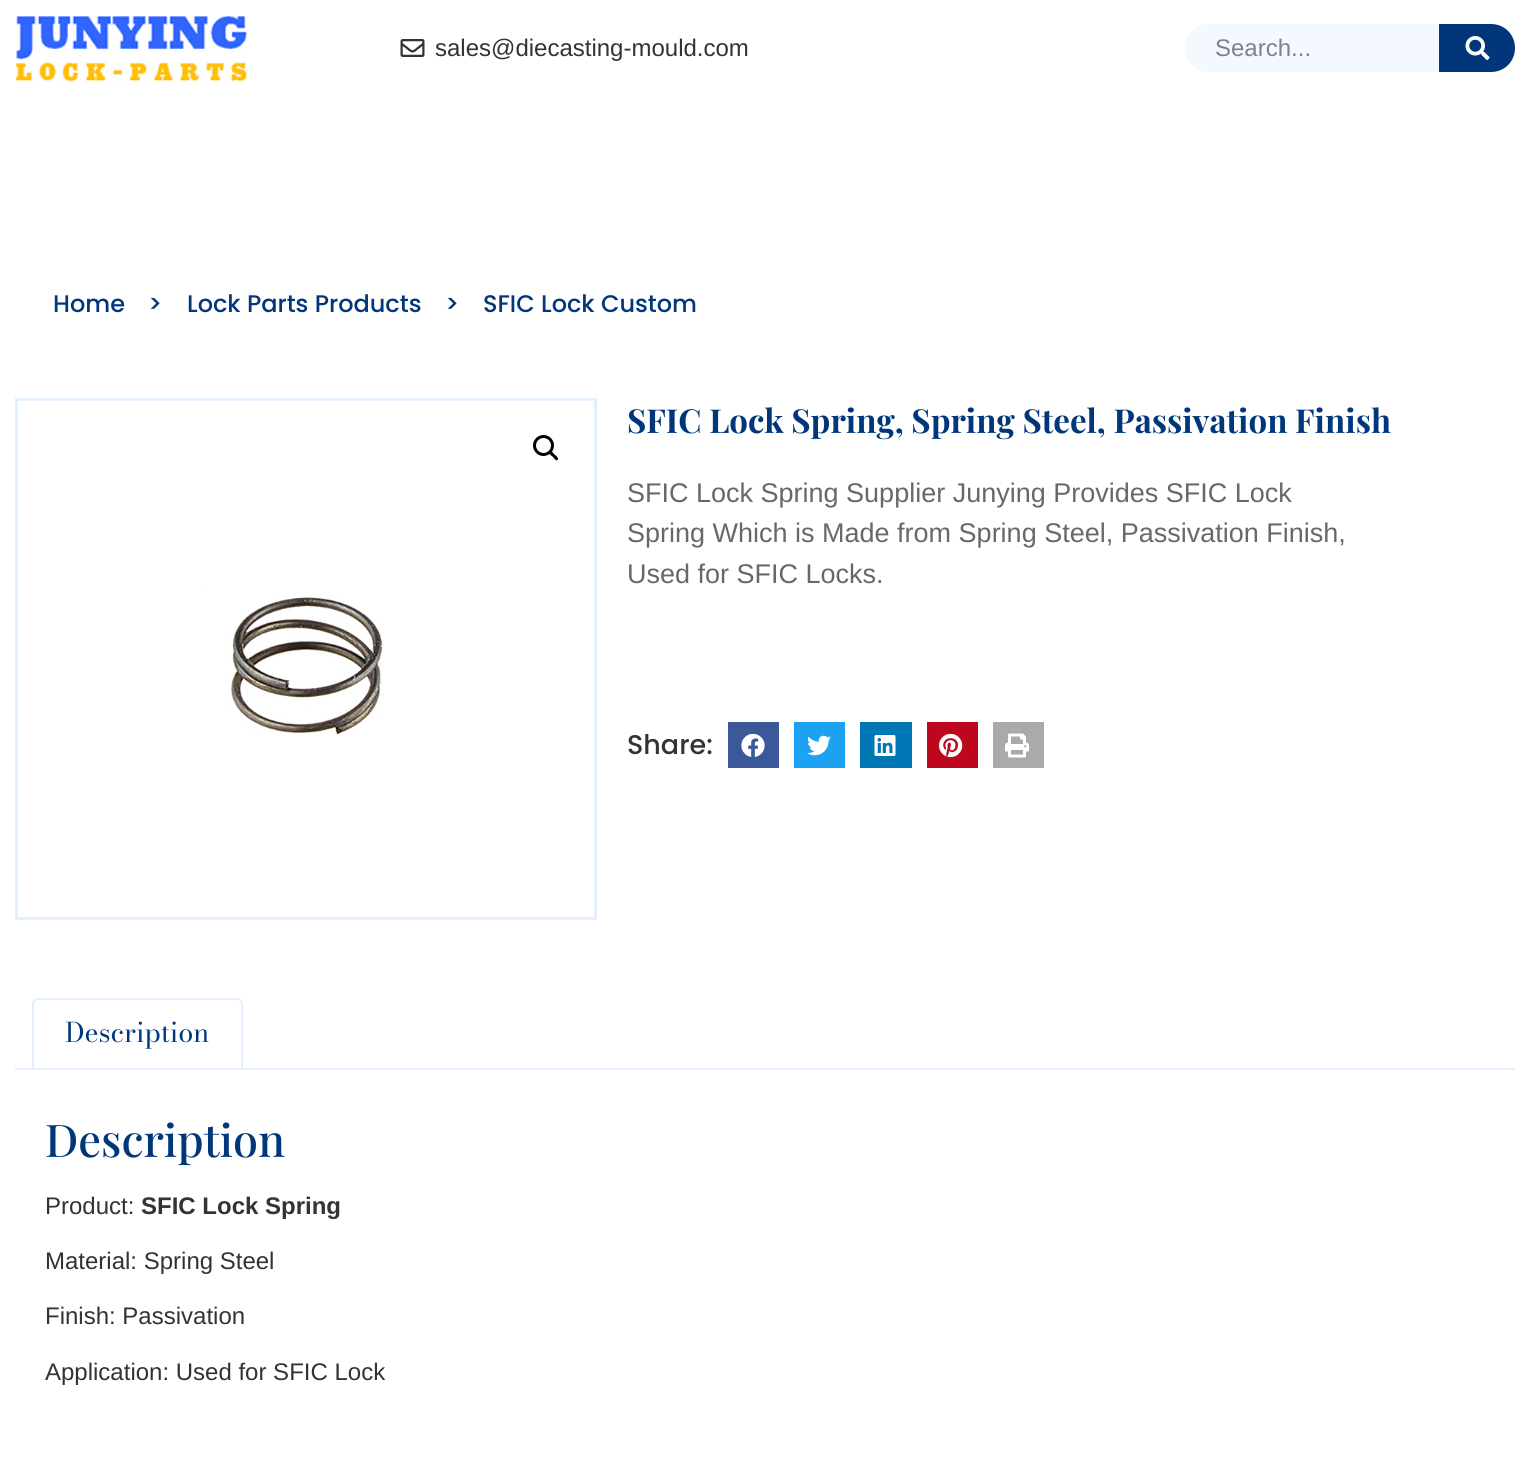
#include <cairo.h>
#include <math.h>
#include <stddef.h>


static void round_rect(cairo_t *cr, double x, double y, double w, double h, double r) {
    cairo_new_sub_path(cr);
    cairo_arc(cr, x + w - r, y + h - r, r, 0, M_PI / 2);
    cairo_arc(cr, x + r, y + h - r, r, M_PI / 2, M_PI);
    cairo_arc(cr, x + r, y + r, r, M_PI, 1.5 * M_PI);
    cairo_arc(cr, x + w - r, y + r, r, 1.5 * M_PI, 2 * M_PI);
    cairo_close_path(cr);
}

static void picture(cairo_t *cr, const char *path, double x, double y, double w, double h) {
    cairo_surface_t *image = cairo_image_surface_create_from_png(path);
    cairo_save(cr);
    cairo_set_source_surface(cr, image, x, y);
    cairo_rectangle(cr, x, y, w, h);
    cairo_fill(cr);
    cairo_restore(cr);
    cairo_surface_destroy(image);
}

int main(void) {
    cairo_surface_t *surface = cairo_image_surface_create(CAIRO_FORMAT_RGB24, 1530, 1484);
    cairo_t *cr = cairo_create(surface);
    cairo_font_options_t *options = cairo_font_options_create();
    cairo_font_options_set_hint_metrics(options, CAIRO_HINT_METRICS_OFF);
    cairo_font_options_set_hint_style(options, CAIRO_HINT_STYLE_NONE);
    cairo_set_font_options(cr, options);
    cairo_set_miter_limit(cr, 4);
    cairo_set_source_rgb(cr, 1, 1, 1);
    cairo_paint(cr);
    picture(cr, "img1.png", 16, 16, 231, 66);
    picture(cr, "img2.png", 400, 39, 25, 18);
    cairo_select_font_face(cr, "Liberation Sans", CAIRO_FONT_SLANT_NORMAL, CAIRO_FONT_WEIGHT_NORMAL);
    cairo_set_font_size(cr, 24);
    cairo_set_source_rgb(cr, 0.2, 0.2, 0.2);
    cairo_move_to(cr, 435, 56);
    cairo_show_text(cr, "sales@diecasting-mould.com");
    cairo_set_source_rgb(cr, 0.953, 0.973, 1);
    round_rect(cr, 1185, 24, 330, 48, 24);
    cairo_fill(cr);
    cairo_set_source_rgb(cr, 0.502, 0.51, 0.522);
    cairo_move_to(cr, 1215, 56);
    cairo_show_text(cr, "Search...");
    cairo_set_source_rgb(cr, 0.004, 0.212, 0.478);
    cairo_new_path(cr);
    cairo_move_to(cr, 1439, 24);
    cairo_line_to(cr, 1491, 24);
    cairo_curve_to(cr, 1504.5, 24, 1515, 34.5, 1515, 48);
    cairo_curve_to(cr, 1515, 61.5, 1504.5, 72, 1491, 72);
    cairo_line_to(cr, 1439, 72);
    cairo_close_path(cr);
    cairo_fill(cr);
    picture(cr, "img3.png", 1465, 36, 25, 24);
    cairo_select_font_face(cr, "Poppins Medium", CAIRO_FONT_SLANT_NORMAL, CAIRO_FONT_WEIGHT_NORMAL);
    cairo_set_source_rgb(cr, 0, 0.212, 0.478);
    cairo_move_to(cr, 53, 312);
    cairo_show_text(cr, "Home");
    cairo_move_to(cr, 148, 312);
    cairo_show_text(cr, ">");
    cairo_move_to(cr, 187, 312);
    cairo_show_text(cr, "Lock Parts Products");
    cairo_move_to(cr, 445, 312);
    cairo_show_text(cr, ">");
    cairo_move_to(cr, 483, 312);
    cairo_show_text(cr, "SFIC Lock Custom");
    cairo_rectangle(cr, 16.5, 399.5, 579, 519);
    cairo_set_source_rgb(cr, 0.886, 0.937, 1);
    cairo_set_line_width(cr, 3);
    cairo_stroke(cr);
    picture(cr, "img4.png", 18, 400, 576, 335);
    cairo_arc(cr, 543.5, 445.5, 9, 0, 2 * M_PI);
    cairo_set_source_rgb(cr, 0, 0, 0);
    cairo_stroke(cr);
    cairo_new_path(cr);
    cairo_move_to(cr, 549.5, 451.5);
    cairo_curve_to(cr, 551, 449.5, 553.5, 453.5, 554.5, 454.5);
    cairo_curve_to(cr, 555.5, 455.5, 559.5, 458, 557.5, 460);
    cairo_curve_to(cr, 556, 461.5, 553.5, 457.5, 552.5, 456.5);
    cairo_curve_to(cr, 551.5, 456, 547.5, 453, 549.5, 451.5);
    cairo_close_path(cr);
    cairo_fill(cr);
    cairo_select_font_face(cr, "Playfair Display", CAIRO_FONT_SLANT_NORMAL, CAIRO_FONT_WEIGHT_BOLD);
    cairo_set_font_size(cr, 33);
    cairo_set_source_rgb(cr, 0, 0.212, 0.478);
    cairo_move_to(cr, 627, 433);
    cairo_show_text(cr, "SFIC Lock Spring, Spring Steel, Passivation Finish");
    cairo_select_font_face(cr, "Liberation Sans", CAIRO_FONT_SLANT_NORMAL, CAIRO_FONT_WEIGHT_NORMAL);
    cairo_set_font_size(cr, 27);
    cairo_set_source_rgb(cr, 0.408, 0.408, 0.408);
    cairo_move_to(cr, 627, 502);
    cairo_show_text(cr, "SFIC Lock Spring Supplier Junying Provides SFIC Lock");
    cairo_move_to(cr, 627, 542);
    cairo_show_text(cr, "Spring Which is Made from Spring Steel, Passivation Finish,");
    cairo_move_to(cr, 627, 583);
    cairo_show_text(cr, "Used for SFIC Locks.");
    cairo_select_font_face(cr, "Poppins Medium", CAIRO_FONT_SLANT_NORMAL, CAIRO_FONT_WEIGHT_NORMAL);
    cairo_set_source_rgb(cr, 0.2, 0.2, 0.2);
    cairo_move_to(cr, 627, 754);
    cairo_show_text(cr, "Share:");
    cairo_rectangle(cr, 729.5, 723.5, 48, 43);
    cairo_set_source_rgb(cr, 0.231, 0.349, 0.596);
    cairo_stroke(cr);
    cairo_rectangle(cr, 731, 725, 45, 40);
    cairo_fill(cr);
    picture(cr, "img5.png", 741, 733, 24, 24);
    cairo_rectangle(cr, 795.5, 723.5, 48, 43);
    cairo_set_source_rgb(cr, 0.114, 0.631, 0.949);
    cairo_stroke(cr);
    cairo_rectangle(cr, 797, 725, 45, 40);
    cairo_fill(cr);
    picture(cr, "img6.png", 807, 735, 24, 21);
    cairo_rectangle(cr, 861.5, 723.5, 49, 43);
    cairo_set_source_rgb(cr, 0, 0.467, 0.71);
    cairo_stroke(cr);
    cairo_rectangle(cr, 863, 725, 46, 40);
    cairo_fill(cr);
    picture(cr, "img7.png", 874, 735, 22, 21);
    cairo_rectangle(cr, 928.5, 723.5, 48, 43);
    cairo_set_source_rgb(cr, 0.741, 0.031, 0.11);
    cairo_stroke(cr);
    cairo_rectangle(cr, 930, 725, 45, 40);
    cairo_fill(cr);
    picture(cr, "img8.png", 939, 733, 24, 25);
    cairo_rectangle(cr, 994.5, 723.5, 48, 43);
    cairo_set_source_rgb(cr, 0.667, 0.667, 0.667);
    cairo_stroke(cr);
    cairo_rectangle(cr, 996, 725, 45, 40);
    cairo_fill(cr);
    picture(cr, "img9.png", 1005, 733, 24, 25);
    cairo_set_source_rgb(cr, 0.886, 0.937, 1);
    cairo_rectangle(cr, 15, 1068, 1500, 2);
    cairo_fill(cr);
    cairo_set_source_rgb(cr, 1, 1, 1);
    cairo_new_path(cr);
    cairo_move_to(cr, 38, 999);
    cairo_line_to(cr, 237, 999);
    cairo_curve_to(cr, 240, 999, 242, 1001, 242, 1004);
    cairo_line_to(cr, 242, 1069);
    cairo_line_to(cr, 33, 1069);
    cairo_line_to(cr, 33, 1004);
    cairo_curve_to(cr, 33, 1001, 35, 999, 38, 999);
    cairo_close_path(cr);
    cairo_fill_preserve(cr);
    cairo_set_source_rgb(cr, 0.886, 0.937, 1);
    cairo_set_line_width(cr, 2);
    cairo_stroke(cr);
    cairo_select_font_face(cr, "Bodoni Moda", CAIRO_FONT_SLANT_NORMAL, CAIRO_FONT_WEIGHT_NORMAL);
    cairo_set_source_rgb(cr, 0, 0.212, 0.478);
    cairo_move_to(cr, 65, 1042);
    cairo_show_text(cr, "Description");
    cairo_select_font_face(cr, "Playfair Display Medium", CAIRO_FONT_SLANT_NORMAL, CAIRO_FONT_WEIGHT_NORMAL);
    cairo_set_font_size(cr, 45);
    cairo_move_to(cr, 45, 1157);
    cairo_show_text(cr, "Description");
    cairo_select_font_face(cr, "Liberation Sans", CAIRO_FONT_SLANT_NORMAL, CAIRO_FONT_WEIGHT_NORMAL);
    cairo_set_font_size(cr, 24);
    cairo_set_source_rgb(cr, 0.2, 0.2, 0.2);
    cairo_move_to(cr, 45, 1214);
    cairo_show_text(cr, "Product:");
    cairo_select_font_face(cr, "Liberation Sans", CAIRO_FONT_SLANT_NORMAL, CAIRO_FONT_WEIGHT_BOLD);
    cairo_move_to(cr, 141, 1214);
    cairo_show_text(cr, "SFIC Lock Spring");
    cairo_select_font_face(cr, "Liberation Sans", CAIRO_FONT_SLANT_NORMAL, CAIRO_FONT_WEIGHT_NORMAL);
    cairo_move_to(cr, 45, 1269);
    cairo_show_text(cr, "Material: Spring Steel");
    cairo_move_to(cr, 45, 1324);
    cairo_show_text(cr, "Finish: Passivation");
    cairo_move_to(cr, 45, 1380);
    cairo_show_text(cr, "Application: Used for SFIC Lock");
    cairo_surface_write_to_png(surface, "page.png");
    cairo_font_options_destroy(options);
    cairo_destroy(cr);
    cairo_surface_destroy(surface);
    return 0;
}
